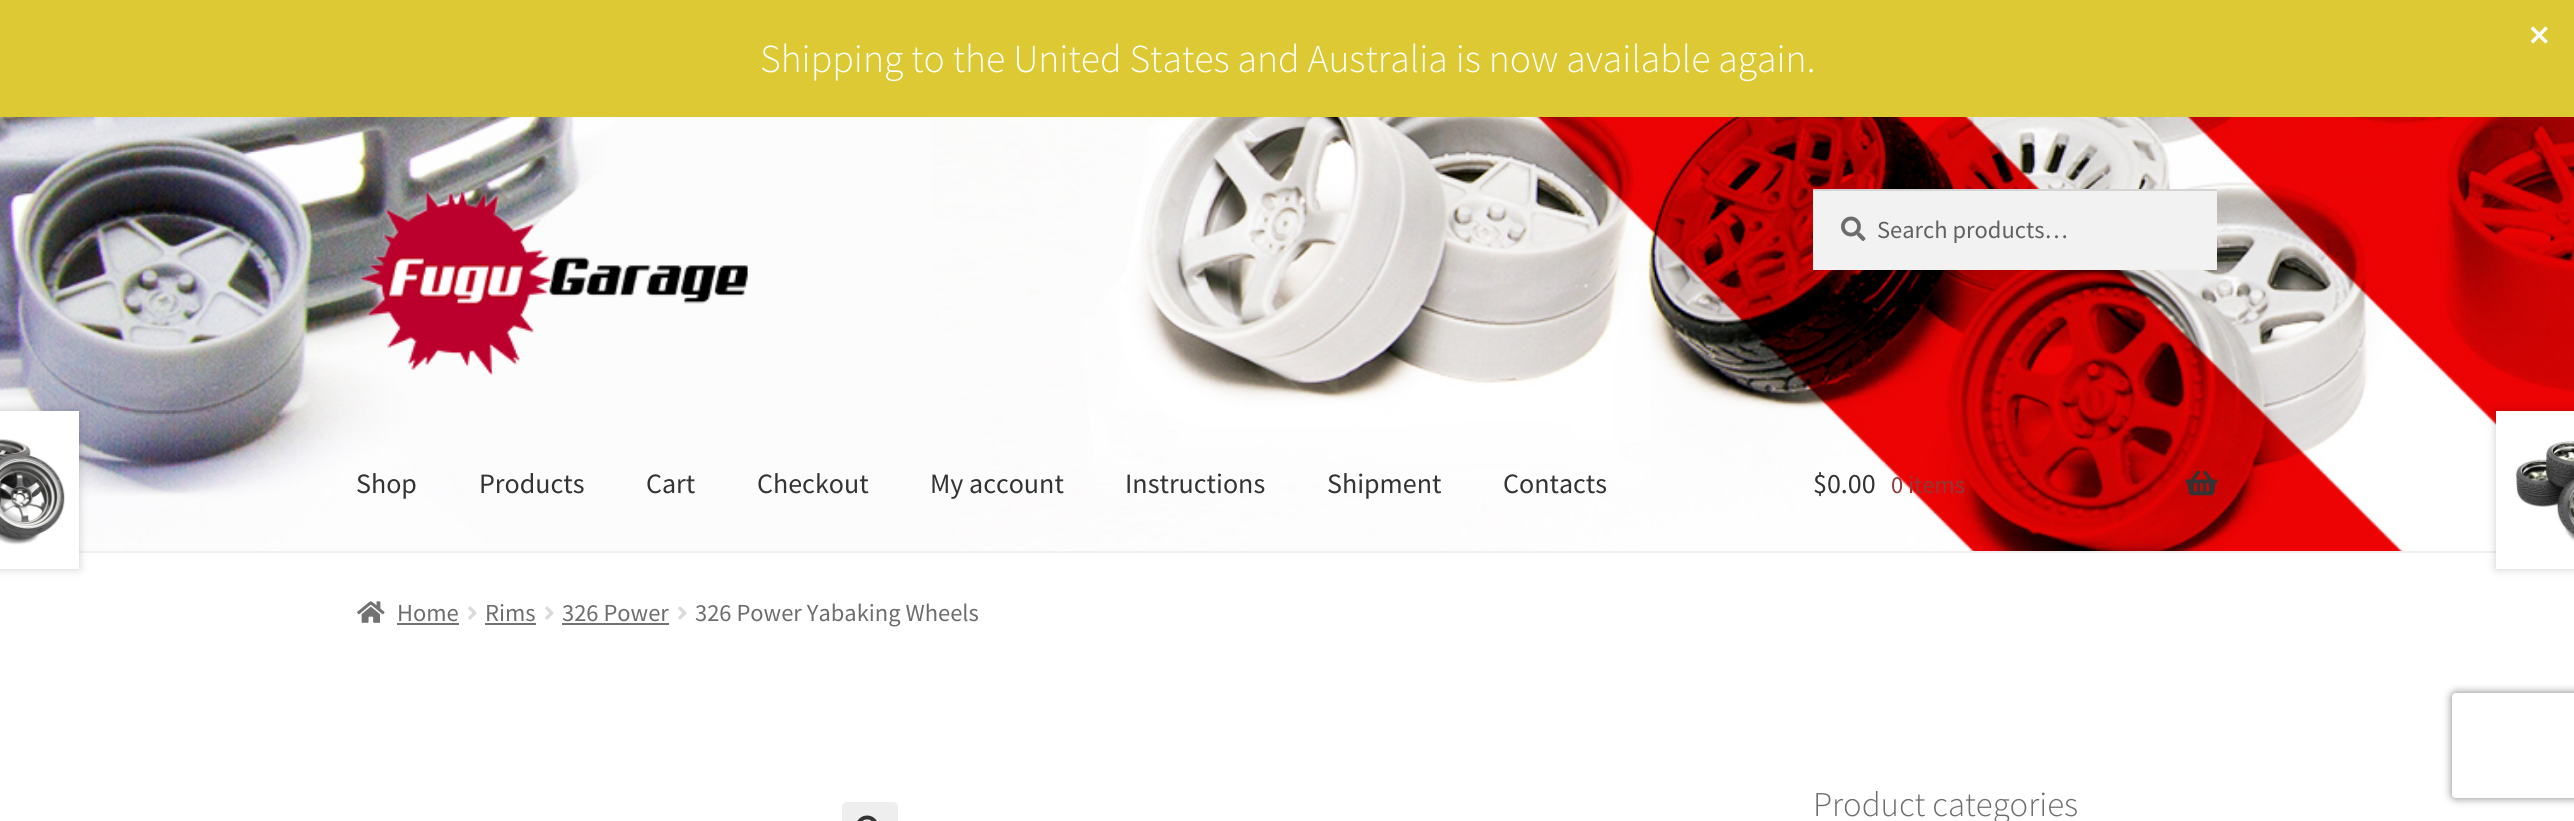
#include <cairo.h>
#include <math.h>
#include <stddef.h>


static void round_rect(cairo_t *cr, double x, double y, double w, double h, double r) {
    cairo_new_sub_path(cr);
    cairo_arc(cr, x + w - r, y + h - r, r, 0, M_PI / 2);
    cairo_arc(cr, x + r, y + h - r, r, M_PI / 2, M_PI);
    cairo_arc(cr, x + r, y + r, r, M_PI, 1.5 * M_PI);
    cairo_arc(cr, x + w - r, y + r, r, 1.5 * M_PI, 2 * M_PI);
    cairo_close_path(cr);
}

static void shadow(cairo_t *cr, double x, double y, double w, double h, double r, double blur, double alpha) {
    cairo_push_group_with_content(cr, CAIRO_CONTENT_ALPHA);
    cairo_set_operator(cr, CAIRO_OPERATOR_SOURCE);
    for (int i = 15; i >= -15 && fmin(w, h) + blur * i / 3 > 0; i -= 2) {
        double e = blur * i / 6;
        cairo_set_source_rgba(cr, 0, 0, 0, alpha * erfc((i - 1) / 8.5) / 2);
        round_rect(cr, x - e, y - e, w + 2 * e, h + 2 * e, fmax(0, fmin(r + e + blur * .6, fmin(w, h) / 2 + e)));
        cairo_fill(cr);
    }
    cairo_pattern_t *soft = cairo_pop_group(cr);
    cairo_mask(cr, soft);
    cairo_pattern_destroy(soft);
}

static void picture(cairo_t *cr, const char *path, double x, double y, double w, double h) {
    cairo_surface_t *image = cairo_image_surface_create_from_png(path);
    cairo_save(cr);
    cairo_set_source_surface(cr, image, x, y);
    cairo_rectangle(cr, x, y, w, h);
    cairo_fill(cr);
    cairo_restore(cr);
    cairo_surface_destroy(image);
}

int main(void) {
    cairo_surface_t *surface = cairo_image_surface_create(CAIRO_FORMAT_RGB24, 2574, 821);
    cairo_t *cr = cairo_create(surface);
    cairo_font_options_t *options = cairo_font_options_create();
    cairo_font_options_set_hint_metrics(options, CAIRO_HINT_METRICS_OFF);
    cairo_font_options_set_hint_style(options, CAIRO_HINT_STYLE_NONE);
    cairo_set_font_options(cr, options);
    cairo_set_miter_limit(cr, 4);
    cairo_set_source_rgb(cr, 1, 1, 1);
    cairo_paint(cr);
    cairo_set_source_rgb(cr, 0.867, 0.788, 0.2);
    cairo_rectangle(cr, 0, 0, 2574, 117);
    cairo_fill(cr);
    picture(cr, "img1.png", 2530, 26, 18, 18);
    cairo_select_font_face(cr, "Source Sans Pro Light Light", CAIRO_FONT_SLANT_NORMAL, CAIRO_FONT_WEIGHT_NORMAL);
    cairo_set_font_size(cr, 39.65);
    cairo_set_source_rgb(cr, 1, 1, 1);
    cairo_move_to(cr, 760, 72);
    cairo_show_text(cr, "Shipping to the United States and Australia is now available again.");
    picture(cr, "img2.png", 0, 117, 2574, 434);
    cairo_set_source_rgb(cr, 0.941, 0.941, 0.941);
    cairo_rectangle(cr, 79, 551, 2417, 2);
    cairo_fill(cr);
    picture(cr, "img3.png", 359, 190, 389, 185);
    cairo_set_source_rgb(cr, 0.949, 0.949, 0.949);
    cairo_rectangle(cr, 1813, 191, 404, 79);
    cairo_fill(cr);
    picture(cr, "img4.png", 1841, 216, 25, 25);
    cairo_set_source_rgb(cr, 0.831, 0.831, 0.831);
    cairo_rectangle(cr, 1813, 189, 404, 2);
    cairo_fill(cr);
    cairo_select_font_face(cr, "Source Sans Pro", CAIRO_FONT_SLANT_NORMAL, CAIRO_FONT_WEIGHT_NORMAL);
    cairo_set_font_size(cr, 24.5);
    cairo_set_source_rgb(cr, 0.38, 0.38, 0.38);
    cairo_move_to(cr, 1877, 238);
    cairo_show_text(cr, "Search products…");
    cairo_set_font_size(cr, 28);
    cairo_set_source_rgb(cr, 0.2, 0.2, 0.2);
    cairo_move_to(cr, 356, 493);
    cairo_show_text(cr, "Shop");
    cairo_move_to(cr, 479, 493);
    cairo_show_text(cr, "Products");
    cairo_move_to(cr, 646, 493);
    cairo_show_text(cr, "Cart");
    cairo_move_to(cr, 757, 493);
    cairo_show_text(cr, "Checkout");
    cairo_move_to(cr, 930, 493);
    cairo_show_text(cr, "My account");
    cairo_move_to(cr, 1125, 493);
    cairo_show_text(cr, "Instructions");
    cairo_move_to(cr, 1327, 493);
    cairo_show_text(cr, "Shipment");
    cairo_move_to(cr, 1503, 493);
    cairo_show_text(cr, "Contacts");
    cairo_move_to(cr, 1813, 493);
    cairo_show_text(cr, "$0.00");
    cairo_set_font_size(cr, 24.5);
    cairo_set_source_rgb(cr, 0.565, 0.216, 0.216);
    cairo_move_to(cr, 1891, 493);
    cairo_show_text(cr, "0 items");
    picture(cr, "img5.png", 2185, 470, 33, 26);
    picture(cr, "img6.png", 357, 601, 28, 22);
    cairo_set_source_rgb(cr, 0.427, 0.427, 0.427);
    cairo_move_to(cr, 397, 621);
    cairo_show_text(cr, "Home");
    cairo_set_source_rgb(cr, 0.447, 0.447, 0.447);
    cairo_rectangle(cr, 397, 623, 62, 2);
    cairo_fill(cr);
    picture(cr, "img7.png", 468, 606, 9, 14);
    cairo_set_source_rgb(cr, 0.427, 0.427, 0.427);
    cairo_move_to(cr, 485, 621);
    cairo_show_text(cr, "Rims");
    cairo_set_source_rgb(cr, 0.447, 0.447, 0.447);
    cairo_rectangle(cr, 485, 623, 51, 2);
    cairo_fill(cr);
    picture(cr, "img7.png", 545, 606, 9, 14);
    cairo_set_source_rgb(cr, 0.427, 0.427, 0.427);
    cairo_move_to(cr, 562, 621);
    cairo_show_text(cr, "326 Power");
    cairo_set_source_rgb(cr, 0.447, 0.447, 0.447);
    cairo_rectangle(cr, 562, 623, 107, 2);
    cairo_fill(cr);
    picture(cr, "img7.png", 678, 606, 9, 14);
    cairo_set_source_rgb(cr, 0.427, 0.427, 0.427);
    cairo_move_to(cr, 695, 621);
    cairo_show_text(cr, "326 Power Yabaking Wheels");
    cairo_set_source_rgb(cr, 0, 0, 0);
    shadow(cr, -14, 411, 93, 158, 0, 4.5, 0.2);
    cairo_set_source_rgb(cr, 1, 1, 1);
    cairo_rectangle(cr, 0, 411, 79, 158);
    cairo_fill(cr);
    picture(cr, "img8.png", 0, 438, 65, 107);
    cairo_set_source_rgb(cr, 0, 0, 0);
    shadow(cr, 2496, 411, 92, 158, 0, 4.5, 0.2);
    cairo_set_source_rgb(cr, 1, 1, 1);
    cairo_rectangle(cr, 2496, 411, 78, 158);
    cairo_fill(cr);
    picture(cr, "img9.png", 2515, 441, 59, 100);
    cairo_set_source_rgb(cr, 0.933, 0.933, 0.933);
    round_rect(cr, 842, 802, 56, 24, 5);
    cairo_fill(cr);
    picture(cr, "img10.png", 857, 815, 20, 6);
    cairo_select_font_face(cr, "Source Sans Pro Light Light", CAIRO_FONT_SLANT_NORMAL, CAIRO_FONT_WEIGHT_NORMAL);
    cairo_set_font_size(cr, 34.75);
    cairo_set_source_rgb(cr, 0.427, 0.427, 0.427);
    cairo_move_to(cr, 1813, 816);
    cairo_show_text(cr, "Product categories");
    cairo_save(cr);
    cairo_set_fill_rule(cr, CAIRO_FILL_RULE_EVEN_ODD);
    cairo_new_path(cr);
    cairo_move_to(cr, 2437, 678);
    cairo_line_to(cr, 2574, 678);
    cairo_line_to(cr, 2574, 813);
    cairo_line_to(cr, 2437, 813);
    cairo_close_path(cr);
    cairo_move_to(cr, 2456, 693);
    cairo_line_to(cr, 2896, 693);
    cairo_curve_to(cr, 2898, 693, 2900, 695, 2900, 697);
    cairo_line_to(cr, 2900, 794);
    cairo_curve_to(cr, 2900, 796, 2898, 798, 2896, 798);
    cairo_line_to(cr, 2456, 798);
    cairo_curve_to(cr, 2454, 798, 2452, 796, 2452, 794);
    cairo_line_to(cr, 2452, 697);
    cairo_curve_to(cr, 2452, 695, 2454, 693, 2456, 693);
    cairo_close_path(cr);
    cairo_clip(cr);
    cairo_set_source_rgb(cr, 0.502, 0.502, 0.502);
    shadow(cr, 2452, 693, 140, 105, 4, 4.5, 1);
    cairo_restore(cr);
    cairo_surface_write_to_png(surface, "page.png");
    cairo_font_options_destroy(options);
    cairo_destroy(cr);
    cairo_surface_destroy(surface);
    return 0;
}
